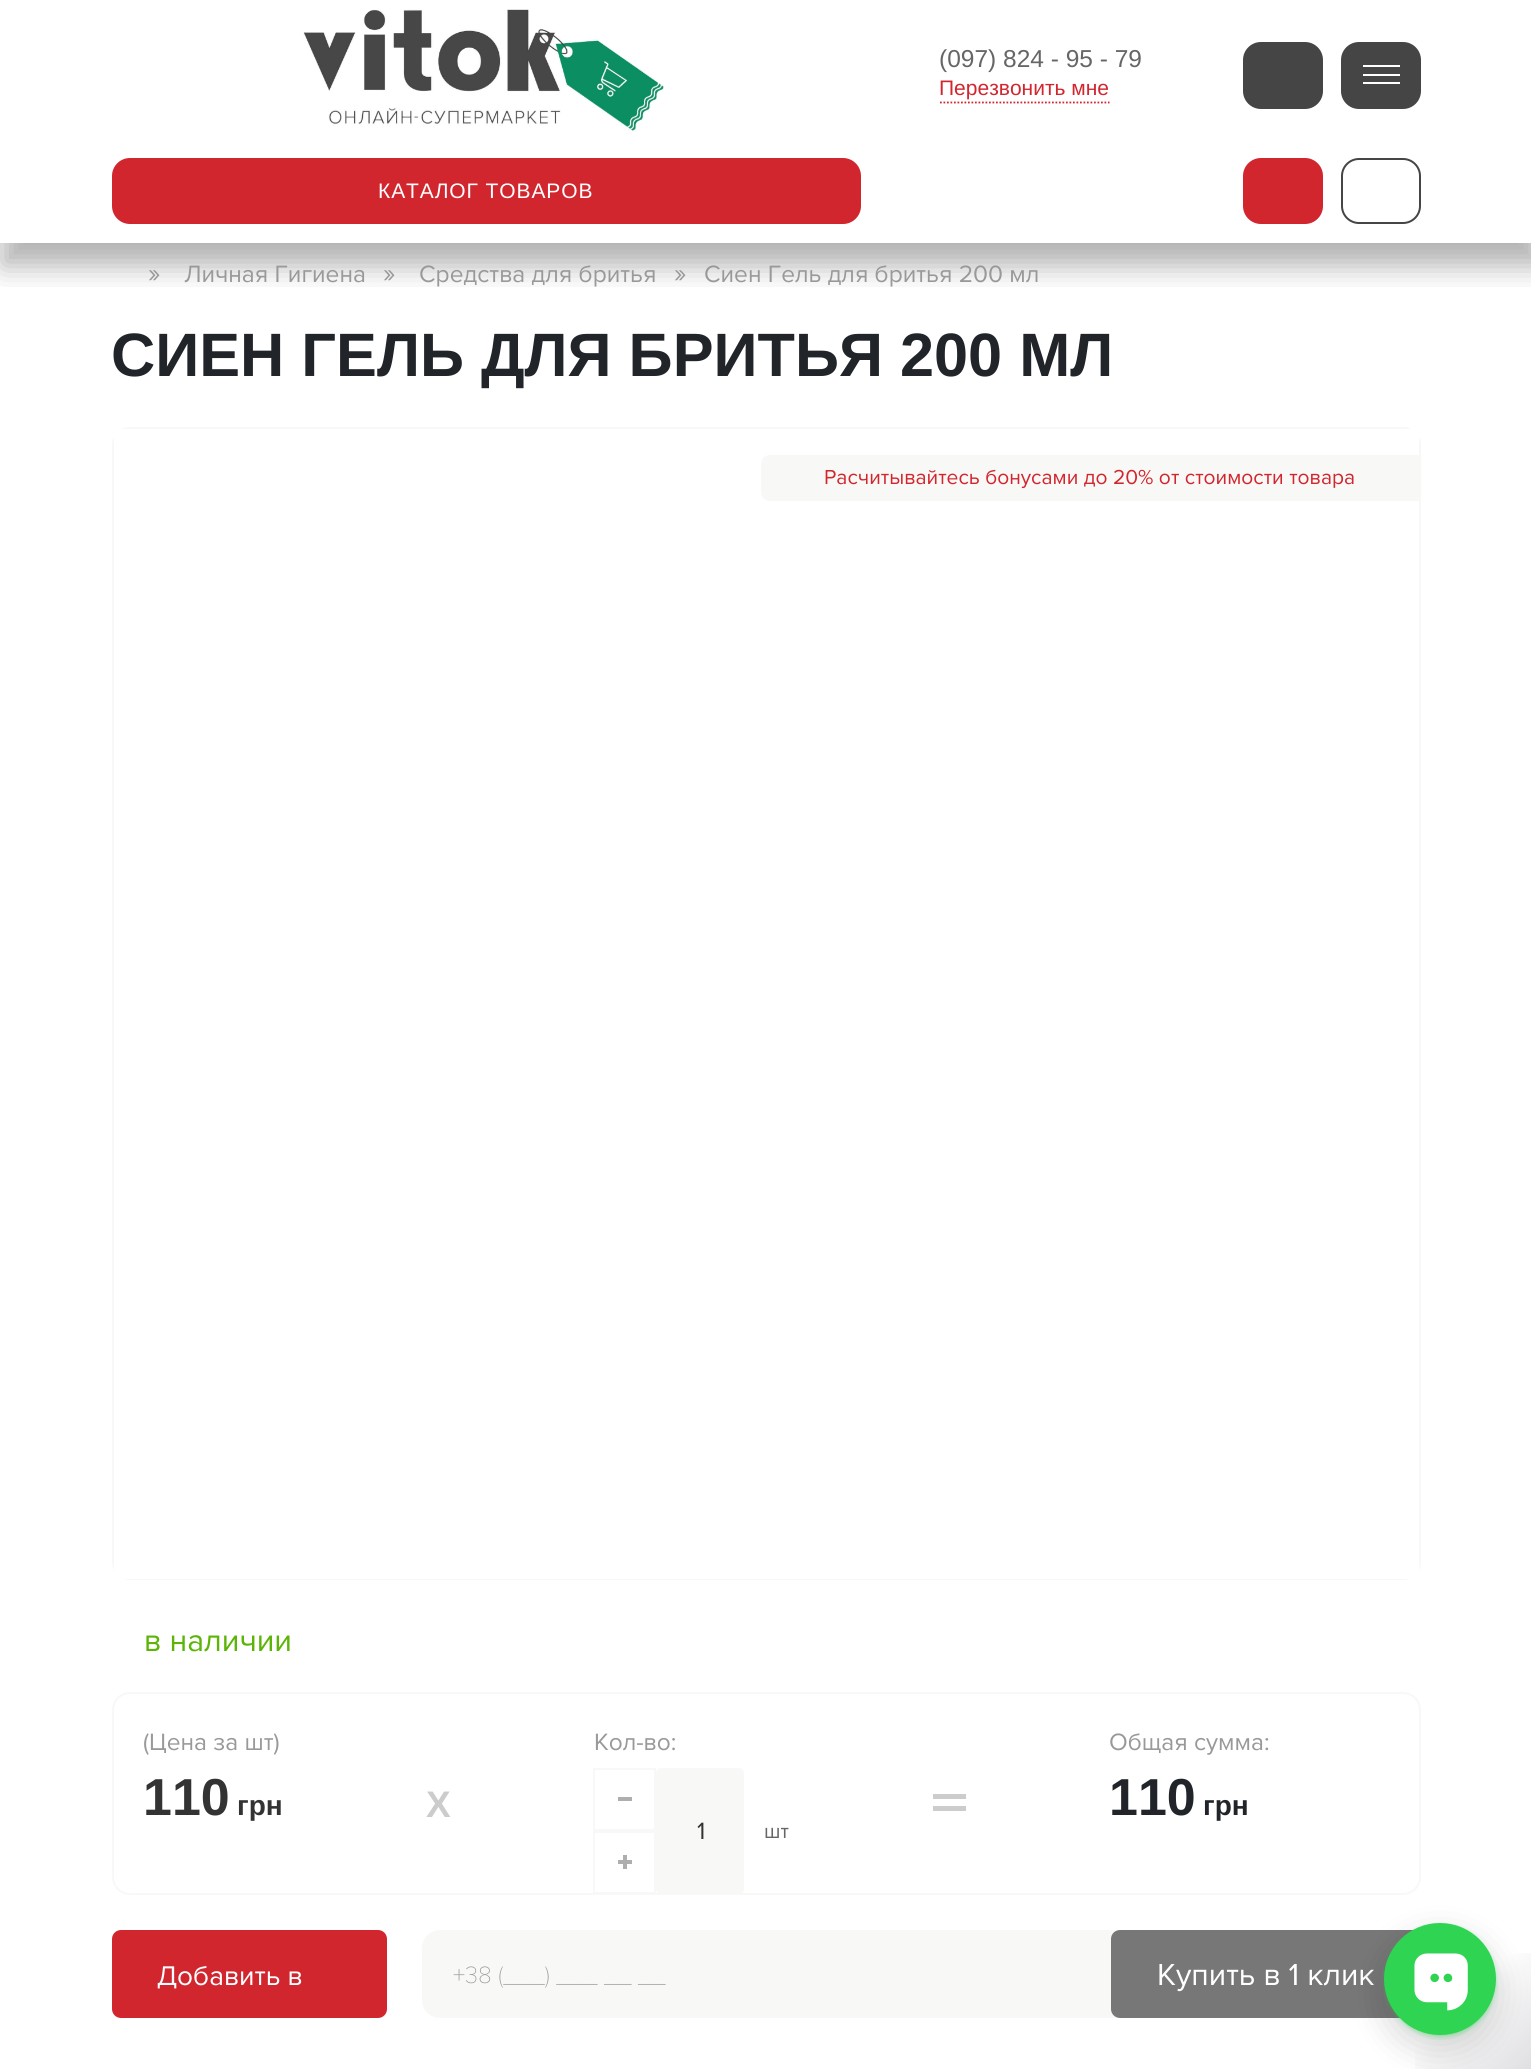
#include <cairo.h>
#include <math.h>
#include <stddef.h>


static void spaced_text(cairo_t *cr, double x, double y, const char *s, double letter, double word) {
    cairo_move_to(cr, x, y);
    while (*s) {
        char ch[5] = {0};
        int n = 0;
        do ch[n++] = *s++; while ((*s & 0xC0) == 0x80);
        cairo_show_text(cr, ch);
        cairo_rel_move_to(cr, letter + word * (*ch == ' '), 0);
    }
}

static void round_rect(cairo_t *cr, double x, double y, double w, double h, double r) {
    cairo_new_sub_path(cr);
    cairo_arc(cr, x + w - r, y + h - r, r, 0, M_PI / 2);
    cairo_arc(cr, x + r, y + h - r, r, M_PI / 2, M_PI);
    cairo_arc(cr, x + r, y + r, r, M_PI, 1.5 * M_PI);
    cairo_arc(cr, x + w - r, y + r, r, 1.5 * M_PI, 2 * M_PI);
    cairo_close_path(cr);
}

static void shadow(cairo_t *cr, double x, double y, double w, double h, double r, double blur, double alpha) {
    cairo_push_group_with_content(cr, CAIRO_CONTENT_ALPHA);
    cairo_set_operator(cr, CAIRO_OPERATOR_SOURCE);
    for (int i = 15; i >= -15 && fmin(w, h) + blur * i / 3 > 0; i -= 2) {
        double e = blur * i / 6;
        cairo_set_source_rgba(cr, 0, 0, 0, alpha * erfc((i - 1) / 8.5) / 2);
        round_rect(cr, x - e, y - e, w + 2 * e, h + 2 * e, fmax(0, fmin(r + e + blur * .6, fmin(w, h) / 2 + e)));
        cairo_fill(cr);
    }
    cairo_pattern_t *soft = cairo_pop_group(cr);
    cairo_mask(cr, soft);
    cairo_pattern_destroy(soft);
}

static void picture(cairo_t *cr, const char *path, double x, double y, double w, double h) {
    cairo_surface_t *image = cairo_image_surface_create_from_png(path);
    cairo_save(cr);
    cairo_set_source_surface(cr, image, x, y);
    cairo_rectangle(cr, x, y, w, h);
    cairo_fill(cr);
    cairo_restore(cr);
    cairo_surface_destroy(image);
}

int main(void) {
    cairo_surface_t *surface = cairo_image_surface_create(CAIRO_FORMAT_RGB24, 1531, 2069);
    cairo_t *cr = cairo_create(surface);
    cairo_font_options_t *options = cairo_font_options_create();
    cairo_font_options_set_hint_metrics(options, CAIRO_HINT_METRICS_OFF);
    cairo_font_options_set_hint_style(options, CAIRO_HINT_STYLE_NONE);
    cairo_set_font_options(cr, options);
    cairo_set_miter_limit(cr, 4);
    cairo_pattern_t *gradient;
    cairo_set_source_rgb(cr, 1, 1, 1);
    cairo_paint(cr);
    cairo_save(cr);
    cairo_rectangle(cr, 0, 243, 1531, 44);
    cairo_clip(cr);
    cairo_set_source_rgb(cr, 0, 0, 0);
    shadow(cr, 2, 16, 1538, 250, 0, 14, 0.3);
    cairo_restore(cr);
    picture(cr, "img1.png", 303, 9, 361, 123);
    cairo_select_font_face(cr, "Liberation Sans", CAIRO_FONT_SLANT_NORMAL, CAIRO_FONT_WEIGHT_NORMAL);
    cairo_set_font_size(cr, 24.5);
    cairo_set_source_rgb(cr, 0.4, 0.4, 0.4);
    cairo_move_to(cr, 939, 67);
    cairo_show_text(cr, "(097) 824 - 95 - 79");
    cairo_new_path(cr);
    cairo_move_to(cr, 940, 102.5);
    cairo_line_to(cr, 1109.5, 102.5);
    cairo_set_source_rgb(cr, 0.824, 0.149, 0.184);
    cairo_set_line_width(cr, 1.8);
    cairo_set_dash(cr, (double[]){1.75, 1.75}, 2, 0);
    cairo_stroke(cr);
    cairo_set_font_size(cr, 21);
    cairo_move_to(cr, 939, 95);
    cairo_show_text(cr, "Перезвонить мне");
    cairo_set_source_rgb(cr, 0.271, 0.271, 0.271);
    round_rect(cr, 1243, 42, 80, 67, 18);
    cairo_fill(cr);
    round_rect(cr, 1341, 42, 80, 67, 18);
    cairo_fill(cr);
    cairo_set_source_rgb(cr, 1, 1, 1);
    cairo_rectangle(cr, 1363, 65, 37, 2);
    cairo_fill(cr);
    cairo_rectangle(cr, 1363, 74, 37, 2);
    cairo_fill(cr);
    cairo_rectangle(cr, 1363, 82, 37, 2);
    cairo_fill(cr);
    cairo_set_source_rgb(cr, 0.824, 0.149, 0.184);
    round_rect(cr, 112, 158, 749, 66, 18);
    cairo_fill(cr);
    cairo_set_source_rgb(cr, 1, 1, 1);
    spaced_text(cr, 378, 198, "КАТАЛОГ ТОВАРОВ", 0.9, 0);
    cairo_set_source_rgb(cr, 0.824, 0.149, 0.184);
    round_rect(cr, 1243, 158, 80, 66, 18);
    cairo_fill(cr);
    round_rect(cr, 1342, 159, 78, 64, 17);
    cairo_set_source_rgb(cr, 0.271, 0.271, 0.271);
    cairo_set_line_width(cr, 2);
    cairo_set_dash(cr, NULL, 0, 0);
    cairo_stroke(cr);
    cairo_select_font_face(cr, "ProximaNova", CAIRO_FONT_SLANT_NORMAL, CAIRO_FONT_WEIGHT_NORMAL);
    cairo_set_font_size(cr, 28);
    cairo_set_source_rgb(cr, 0.6, 0.6, 0.6);
    cairo_move_to(cr, 148, 282);
    cairo_show_text(cr, "»");
    cairo_set_font_size(cr, 24.5);
    cairo_move_to(cr, 184, 282);
    cairo_show_text(cr, "Личная Гигиена");
    cairo_set_font_size(cr, 28);
    cairo_move_to(cr, 383, 282);
    cairo_show_text(cr, "»");
    cairo_set_font_size(cr, 24.5);
    cairo_move_to(cr, 419, 282);
    cairo_show_text(cr, "Средства для бритья");
    cairo_set_font_size(cr, 28);
    cairo_move_to(cr, 674, 282);
    cairo_show_text(cr, "»");
    cairo_set_font_size(cr, 24.5);
    cairo_move_to(cr, 704, 282);
    cairo_show_text(cr, "Сиен Гель для бритья 200 мл");
    cairo_select_font_face(cr, "Liberation Sans", CAIRO_FONT_SLANT_NORMAL, CAIRO_FONT_WEIGHT_BOLD);
    cairo_set_font_size(cr, 61.25);
    cairo_set_source_rgb(cr, 0.129, 0.145, 0.161);
    cairo_move_to(cr, 111, 376);
    cairo_show_text(cr, "СИЕН ГЕЛЬ ДЛЯ БРИТЬЯ 200 МЛ");
    round_rect(cr, 113, 428, 1307, 1151, 17);
    cairo_set_source_rgb(cr, 0.969, 0.969, 0.961);
    cairo_stroke(cr);
    cairo_set_source_rgb(cr, 1, 1, 1);
    cairo_rectangle(cr, 114, 429, 1305, 1150);
    cairo_fill(cr);
    cairo_set_source_rgb(cr, 0.969, 0.969, 0.961);
    cairo_new_path(cr);
    cairo_move_to(cr, 770, 455);
    cairo_line_to(cr, 1419, 455);
    cairo_line_to(cr, 1419, 501);
    cairo_line_to(cr, 770, 501);
    cairo_curve_to(cr, 765, 501, 761, 497, 761, 492);
    cairo_line_to(cr, 761, 464);
    cairo_curve_to(cr, 761, 459, 765, 455, 770, 455);
    cairo_close_path(cr);
    cairo_fill(cr);
    cairo_select_font_face(cr, "ProximaNova", CAIRO_FONT_SLANT_NORMAL, CAIRO_FONT_WEIGHT_NORMAL);
    cairo_set_font_size(cr, 21);
    cairo_set_source_rgb(cr, 0.824, 0.149, 0.184);
    cairo_move_to(cr, 824, 484);
    cairo_show_text(cr, "Расчитывайтесь бонусами до 20% от стоимости товара");
    cairo_set_font_size(cr, 32);
    cairo_set_source_rgb(cr, 0.361, 0.706, 0.024);
    cairo_move_to(cr, 144, 1651);
    cairo_show_text(cr, "в наличии");
    round_rect(cr, 113, 1693, 1307, 201, 17);
    cairo_set_source_rgb(cr, 0.969, 0.969, 0.961);
    cairo_stroke(cr);
    cairo_set_font_size(cr, 24.5);
    cairo_set_source_rgb(cr, 0.6, 0.6, 0.6);
    cairo_move_to(cr, 143, 1750);
    cairo_show_text(cr, "(Цена за шт)");
    cairo_select_font_face(cr, "Liberation Sans", CAIRO_FONT_SLANT_NORMAL, CAIRO_FONT_WEIGHT_BOLD);
    cairo_set_font_size(cr, 52);
    cairo_set_source_rgb(cr, 0.2, 0.2, 0.2);
    cairo_move_to(cr, 143, 1815);
    cairo_show_text(cr, "110");
    cairo_set_font_size(cr, 28);
    cairo_move_to(cr, 237, 1815);
    cairo_show_text(cr, "грн");
    cairo_set_font_size(cr, 37);
    cairo_set_source_rgb(cr, 0.8, 0.8, 0.8);
    cairo_move_to(cr, 426, 1817);
    cairo_show_text(cr, "X");
    cairo_select_font_face(cr, "ProximaNova", CAIRO_FONT_SLANT_NORMAL, CAIRO_FONT_WEIGHT_NORMAL);
    cairo_set_font_size(cr, 24.5);
    cairo_set_source_rgb(cr, 0.6, 0.6, 0.6);
    cairo_move_to(cr, 594, 1750);
    cairo_show_text(cr, "Кол-во:");
    cairo_rectangle(cr, 594, 1769, 61, 61);
    cairo_set_source_rgb(cr, 0.969, 0.969, 0.961);
    cairo_stroke(cr);
    cairo_set_source_rgb(cr, 0.682, 0.682, 0.682);
    cairo_rectangle(cr, 618, 1797, 14, 4);
    cairo_fill(cr);
    cairo_set_source_rgb(cr, 0.969, 0.969, 0.961);
    round_rect(cr, 656, 1768, 88, 126, 5);
    cairo_fill(cr);
    cairo_set_source_rgb(cr, 0.2, 0.2, 0.2);
    cairo_move_to(cr, 697, 1839);
    cairo_show_text(cr, "1");
    cairo_set_font_size(cr, 21);
    cairo_set_source_rgb(cr, 0.4, 0.4, 0.4);
    cairo_move_to(cr, 764, 1838);
    cairo_show_text(cr, "шт");
    cairo_rectangle(cr, 594, 1832, 61, 61);
    cairo_set_source_rgb(cr, 0.969, 0.969, 0.961);
    cairo_stroke(cr);
    cairo_set_source_rgb(cr, 0.682, 0.682, 0.682);
    cairo_rectangle(cr, 618, 1860, 14, 4);
    cairo_fill(cr);
    cairo_rectangle(cr, 623, 1855, 4, 14);
    cairo_fill(cr);
    cairo_set_source_rgb(cr, 0.8, 0.8, 0.8);
    cairo_rectangle(cr, 933, 1794, 33, 5);
    cairo_fill(cr);
    cairo_rectangle(cr, 933, 1806, 33, 5);
    cairo_fill(cr);
    cairo_set_font_size(cr, 24.5);
    cairo_set_source_rgb(cr, 0.6, 0.6, 0.6);
    cairo_move_to(cr, 1109, 1750);
    cairo_show_text(cr, "Общая сумма:");
    cairo_select_font_face(cr, "Liberation Sans", CAIRO_FONT_SLANT_NORMAL, CAIRO_FONT_WEIGHT_BOLD);
    cairo_set_font_size(cr, 52);
    cairo_set_source_rgb(cr, 0.129, 0.145, 0.161);
    cairo_move_to(cr, 1109, 1815);
    cairo_show_text(cr, "110");
    cairo_set_font_size(cr, 28);
    cairo_move_to(cr, 1203, 1815);
    cairo_show_text(cr, "грн");
    cairo_set_source_rgb(cr, 0.824, 0.149, 0.184);
    round_rect(cr, 113, 1931, 273, 86, 8);
    cairo_fill_preserve(cr);
    cairo_stroke(cr);
    cairo_select_font_face(cr, "ProximaNova", CAIRO_FONT_SLANT_NORMAL, CAIRO_FONT_WEIGHT_NORMAL);
    cairo_set_source_rgb(cr, 1, 1, 1);
    cairo_move_to(cr, 157, 1985);
    cairo_show_text(cr, "Добавить в");
    cairo_set_source_rgb(cr, 0.969, 0.969, 0.961);
    round_rect(cr, 422, 1930, 707, 88, 18);
    cairo_fill(cr);
    cairo_select_font_face(cr, "Proxima Nova Thin", CAIRO_FONT_SLANT_NORMAL, CAIRO_FONT_WEIGHT_NORMAL);
    cairo_set_font_size(cr, 24.5);
    cairo_set_source_rgb(cr, 0.6, 0.6, 0.6);
    cairo_move_to(cr, 453, 1983);
    cairo_show_text(cr, "+38 (___) ___ __ __");
    cairo_set_source_rgb(cr, 0.467, 0.467, 0.467);
    round_rect(cr, 1112, 1931, 308, 86, 8);
    cairo_fill_preserve(cr);
    cairo_stroke(cr);
    cairo_select_font_face(cr, "ProximaNova", CAIRO_FONT_SLANT_NORMAL, CAIRO_FONT_WEIGHT_NORMAL);
    cairo_set_font_size(cr, 31.5);
    cairo_set_source_rgb(cr, 1, 1, 1);
    cairo_move_to(cr, 1157, 1985);
    cairo_show_text(cr, "Купить в 1 клик");
    gradient = cairo_pattern_create_linear(1356, 1895, 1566, 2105);
    cairo_pattern_add_color_stop_rgba(gradient, 0.5, 0.055, 0.055, 0.161, 0);
    cairo_pattern_add_color_stop_rgba(gradient, 1, 0.055, 0.055, 0.161, 0.2);
    cairo_set_source(cr, gradient);
    cairo_pattern_destroy(gradient);
    cairo_rectangle(cr, 1415, 1953, 116, 116);
    cairo_fill(cr);
    cairo_set_source_rgb(cr, 0, 0, 0);
    shadow(cr, 1384, 1937, 112, 112, 56, 17.5, 0.16);
    cairo_set_source_rgb(cr, 0.18, 0.831, 0.322);
    shadow(cr, 1388, 1929, 105, 105, 52.5, 3.5, 1);
    cairo_set_source_rgb(cr, 0.18, 0.831, 0.322);
    cairo_arc(cr, 1440, 1979, 56, 0, 2 * M_PI);
    cairo_fill(cr);
    picture(cr, "img2.png", 1414, 1953, 54, 58);
    cairo_surface_write_to_png(surface, "page.png");
    cairo_font_options_destroy(options);
    cairo_destroy(cr);
    cairo_surface_destroy(surface);
    return 0;
}
